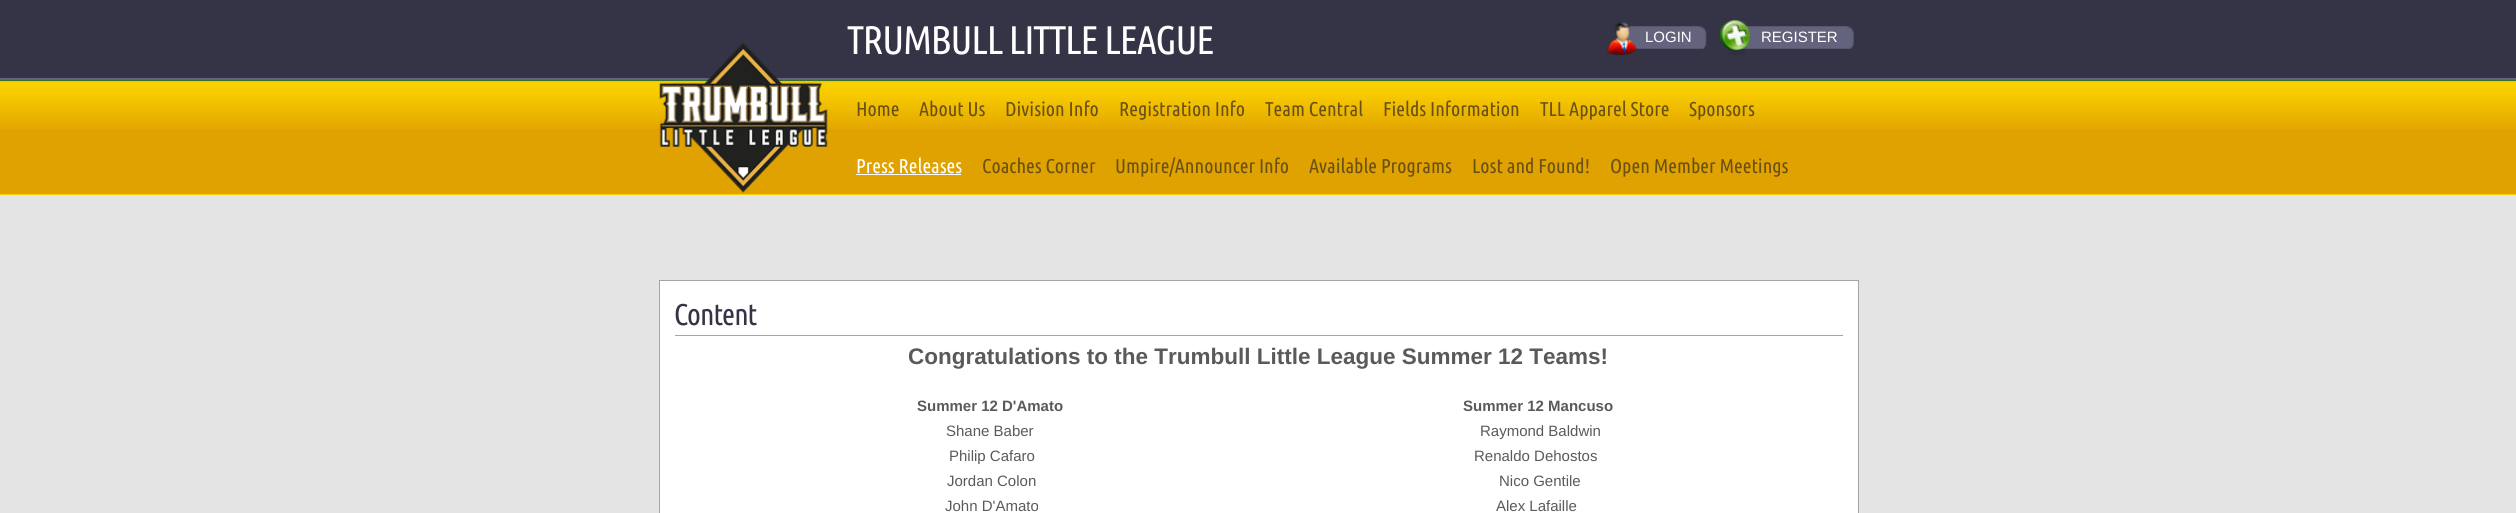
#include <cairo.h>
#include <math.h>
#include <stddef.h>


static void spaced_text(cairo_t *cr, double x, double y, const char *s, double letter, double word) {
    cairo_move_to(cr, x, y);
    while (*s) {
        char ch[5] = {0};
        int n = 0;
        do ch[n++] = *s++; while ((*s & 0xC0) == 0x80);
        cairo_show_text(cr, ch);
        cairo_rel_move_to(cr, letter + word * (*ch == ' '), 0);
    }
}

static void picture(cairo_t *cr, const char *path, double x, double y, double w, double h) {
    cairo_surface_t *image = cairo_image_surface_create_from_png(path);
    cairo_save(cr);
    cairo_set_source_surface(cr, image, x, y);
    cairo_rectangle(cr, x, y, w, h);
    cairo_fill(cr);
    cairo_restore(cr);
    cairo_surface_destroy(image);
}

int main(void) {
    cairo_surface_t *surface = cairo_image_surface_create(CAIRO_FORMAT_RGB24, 2516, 513);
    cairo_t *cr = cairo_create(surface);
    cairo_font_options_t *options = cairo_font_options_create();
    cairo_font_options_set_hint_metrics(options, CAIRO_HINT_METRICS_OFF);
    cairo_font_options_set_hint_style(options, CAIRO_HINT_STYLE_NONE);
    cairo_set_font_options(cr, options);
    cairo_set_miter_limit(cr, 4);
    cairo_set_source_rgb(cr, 0.894, 0.894, 0.894);
    cairo_paint(cr);
    cairo_set_source_rgb(cr, 0.204, 0.204, 0.275);
    cairo_rectangle(cr, 0, 0, 2516, 78);
    cairo_fill(cr);
    cairo_set_source_rgb(cr, 0.388, 0.388, 0.49);
    cairo_rectangle(cr, 0, 78, 2516, 2);
    cairo_fill(cr);
    cairo_select_font_face(cr, "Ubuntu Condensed", CAIRO_FONT_SLANT_NORMAL, CAIRO_FONT_WEIGHT_NORMAL);
    cairo_set_font_size(cr, 40);
    cairo_set_source_rgb(cr, 1, 1, 1);
    spaced_text(cr, 847, 54, "TRUMBULL LITTLE LEAGUE", -1.2, 0);
    picture(cr, "img2.png", 1624, 26, 83, 23);
    picture(cr, "img1.png", 1606, 21, 31, 35);
    picture(cr, "img4.png", 1738, 26, 116, 23);
    picture(cr, "img3.png", 1720, 20, 30, 35);
    cairo_select_font_face(cr, "Liberation Sans", CAIRO_FONT_SLANT_NORMAL, CAIRO_FONT_WEIGHT_NORMAL);
    cairo_set_font_size(cr, 15);
    cairo_move_to(cr, 1645, 42);
    cairo_show_text(cr, "LOGIN");
    cairo_move_to(cr, 1761, 42);
    cairo_show_text(cr, "REGISTER");
    cairo_set_source_rgb(cr, 0.878, 0.635, 0);
    cairo_rectangle(cr, 0, 81, 2516, 113);
    cairo_fill(cr);
    picture(cr, "img6.png", 0, 81, 2516, 48);
    cairo_set_source_rgb(cr, 0.235, 0.431, 0.169);
    cairo_rectangle(cr, 0, 80, 2516, 1);
    cairo_fill(cr);
    picture(cr, "img5.png", 659, 42, 169, 151);
    cairo_set_source_rgb(cr, 0.984, 0.824, 0);
    cairo_rectangle(cr, 0, 194, 2516, 1);
    cairo_fill(cr);
    cairo_select_font_face(cr, "Ubuntu Condensed", CAIRO_FONT_SLANT_NORMAL, CAIRO_FONT_WEIGHT_NORMAL);
    cairo_set_font_size(cr, 20);
    cairo_set_source_rgb(cr, 0.416, 0.318, 0.075);
    cairo_move_to(cr, 856, 116);
    cairo_show_text(cr, "Home");
    cairo_move_to(cr, 919, 116);
    cairo_show_text(cr, "About Us");
    cairo_move_to(cr, 1005, 116);
    cairo_show_text(cr, "Division Info");
    cairo_move_to(cr, 1119, 116);
    cairo_show_text(cr, "Registration Info");
    cairo_move_to(cr, 1265, 116);
    cairo_show_text(cr, "Team Central");
    cairo_move_to(cr, 1383, 116);
    cairo_show_text(cr, "Fields Information");
    cairo_move_to(cr, 1540, 116);
    cairo_show_text(cr, "TLL Apparel Store");
    cairo_move_to(cr, 1689, 116);
    cairo_show_text(cr, "Sponsors");
    cairo_set_source_rgb(cr, 1, 1, 1);
    cairo_move_to(cr, 856, 173);
    cairo_show_text(cr, "Press Releases");
    cairo_rectangle(cr, 856, 174, 105, 1);
    cairo_fill(cr);
    cairo_set_source_rgb(cr, 0.416, 0.318, 0.075);
    cairo_move_to(cr, 982, 173);
    cairo_show_text(cr, "Coaches Corner");
    cairo_move_to(cr, 1115, 173);
    cairo_show_text(cr, "Umpire/Announcer Info");
    cairo_move_to(cr, 1309, 173);
    cairo_show_text(cr, "Available Programs");
    cairo_move_to(cr, 1472, 173);
    cairo_show_text(cr, "Lost and Found!");
    cairo_move_to(cr, 1610, 173);
    cairo_show_text(cr, "Open Member Meetings");
    cairo_set_source_rgb(cr, 1, 1, 1);
    cairo_rectangle(cr, 659.5, 280.5, 1199, 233);
    cairo_fill_preserve(cr);
    cairo_set_source_rgb(cr, 0.643, 0.643, 0.643);
    cairo_set_line_width(cr, 1);
    cairo_stroke(cr);
    cairo_set_font_size(cr, 30);
    cairo_set_source_rgb(cr, 0.204, 0.204, 0.275);
    spaced_text(cr, 674, 325, "Content", -1, 0);
    cairo_set_source_rgb(cr, 0.643, 0.643, 0.643);
    cairo_rectangle(cr, 675, 335, 1168, 1);
    cairo_fill(cr);
    cairo_select_font_face(cr, "Liberation Sans", CAIRO_FONT_SLANT_NORMAL, CAIRO_FONT_WEIGHT_BOLD);
    cairo_set_font_size(cr, 22.5);
    cairo_set_source_rgb(cr, 0.353, 0.353, 0.353);
    cairo_move_to(cr, 908, 364);
    cairo_show_text(cr, "Congratulations to the Trumbull Little League Summer 12 Teams!");
    cairo_set_font_size(cr, 15);
    cairo_move_to(cr, 917, 411);
    cairo_show_text(cr, "Summer 12 D'Amato");
    cairo_move_to(cr, 1463, 411);
    cairo_show_text(cr, "Summer 12 Mancuso");
    cairo_select_font_face(cr, "Liberation Sans", CAIRO_FONT_SLANT_NORMAL, CAIRO_FONT_WEIGHT_NORMAL);
    cairo_move_to(cr, 946, 436);
    cairo_show_text(cr, "Shane Baber");
    cairo_move_to(cr, 1480, 436);
    cairo_show_text(cr, "Raymond Baldwin");
    cairo_move_to(cr, 949, 461);
    cairo_show_text(cr, "Philip Cafaro");
    cairo_move_to(cr, 1474, 461);
    cairo_show_text(cr, "Renaldo Dehostos");
    cairo_move_to(cr, 947, 486);
    cairo_show_text(cr, "Jordan Colon");
    cairo_move_to(cr, 1499, 486);
    cairo_show_text(cr, "Nico Gentile");
    cairo_move_to(cr, 945, 511);
    cairo_show_text(cr, "John D'Amato");
    cairo_move_to(cr, 1496, 511);
    cairo_show_text(cr, "Alex Lafaille");
    cairo_surface_write_to_png(surface, "page.png");
    cairo_font_options_destroy(options);
    cairo_destroy(cr);
    cairo_surface_destroy(surface);
    return 0;
}
